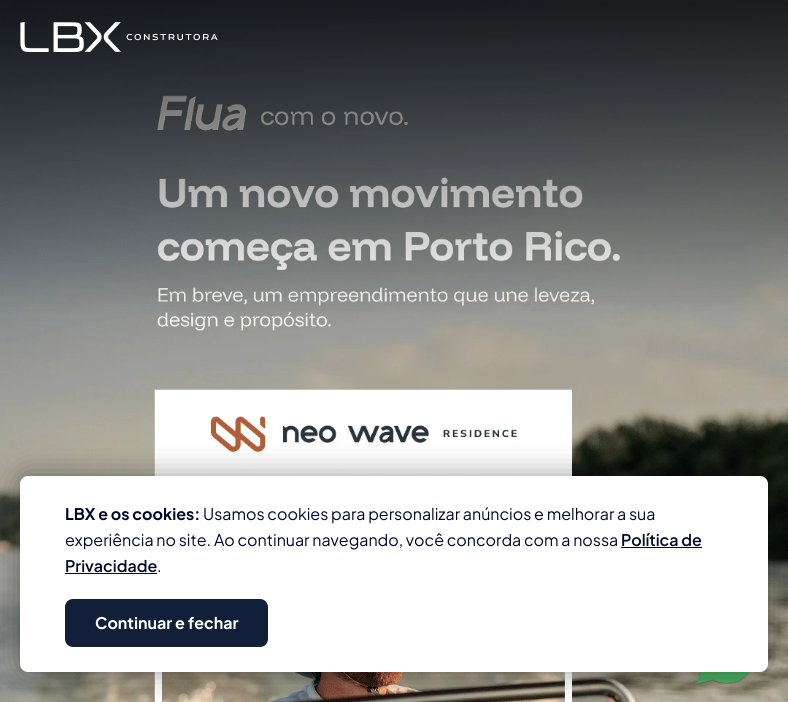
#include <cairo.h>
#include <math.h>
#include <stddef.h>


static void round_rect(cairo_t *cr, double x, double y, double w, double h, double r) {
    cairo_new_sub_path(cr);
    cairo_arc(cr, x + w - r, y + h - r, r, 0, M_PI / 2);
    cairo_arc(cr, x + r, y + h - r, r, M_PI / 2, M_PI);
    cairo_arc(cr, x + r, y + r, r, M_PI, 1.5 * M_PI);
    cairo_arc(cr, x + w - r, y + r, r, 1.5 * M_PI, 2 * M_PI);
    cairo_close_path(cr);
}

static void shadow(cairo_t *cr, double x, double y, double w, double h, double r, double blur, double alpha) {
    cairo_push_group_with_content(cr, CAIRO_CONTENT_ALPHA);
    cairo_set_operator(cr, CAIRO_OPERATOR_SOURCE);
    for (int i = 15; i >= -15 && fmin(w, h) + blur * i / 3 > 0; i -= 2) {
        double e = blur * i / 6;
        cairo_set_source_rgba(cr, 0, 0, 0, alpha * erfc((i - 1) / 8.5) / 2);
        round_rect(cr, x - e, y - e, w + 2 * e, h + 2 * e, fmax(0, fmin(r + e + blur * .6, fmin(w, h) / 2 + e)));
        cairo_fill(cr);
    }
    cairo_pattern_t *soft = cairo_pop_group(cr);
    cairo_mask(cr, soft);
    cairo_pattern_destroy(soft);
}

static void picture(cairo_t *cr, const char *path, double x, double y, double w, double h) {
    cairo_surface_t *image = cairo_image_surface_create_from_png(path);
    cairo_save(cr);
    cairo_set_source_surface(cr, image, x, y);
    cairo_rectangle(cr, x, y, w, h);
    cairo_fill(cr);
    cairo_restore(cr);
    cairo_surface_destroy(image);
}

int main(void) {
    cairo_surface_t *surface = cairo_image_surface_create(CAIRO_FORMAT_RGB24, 788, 702);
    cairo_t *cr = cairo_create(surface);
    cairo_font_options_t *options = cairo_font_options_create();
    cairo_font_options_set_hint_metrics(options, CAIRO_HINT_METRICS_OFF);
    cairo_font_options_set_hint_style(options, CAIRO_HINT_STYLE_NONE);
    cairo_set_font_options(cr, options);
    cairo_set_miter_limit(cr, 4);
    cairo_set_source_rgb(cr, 1, 1, 1);
    cairo_paint(cr);
    picture(cr, "img1.png", 0, 0, 788, 702);
    picture(cr, "img2.png", 20, 22, 198, 30);
    picture(cr, "img3.png", 697, 672, 53, 13);
    cairo_set_source_rgb(cr, 0, 0, 0);
    shadow(cr, 20, 476, 748, 196, 8, 15, 0.4);
    cairo_set_source_rgb(cr, 1, 1, 1);
    round_rect(cr, 20, 476, 748, 196, 8);
    cairo_fill(cr);
    cairo_select_font_face(cr, "Plus Jakarta Sans", CAIRO_FONT_SLANT_NORMAL, CAIRO_FONT_WEIGHT_BOLD);
    cairo_set_font_size(cr, 16);
    cairo_set_source_rgb(cr, 0, 0.035, 0.161);
    cairo_move_to(cr, 65, 520);
    cairo_show_text(cr, "LBX e os cookies:");
    cairo_select_font_face(cr, "Plus Jakarta Sans", CAIRO_FONT_SLANT_NORMAL, CAIRO_FONT_WEIGHT_NORMAL);
    cairo_move_to(cr, 203, 520);
    cairo_show_text(cr, "Usamos cookies para personalizar anúncios e melhorar a sua");
    cairo_move_to(cr, 65, 546);
    cairo_show_text(cr, "experiência no site. Ao continuar navegando, você concorda com a nossa");
    cairo_select_font_face(cr, "Plus Jakarta Sans SemiBold", CAIRO_FONT_SLANT_NORMAL, CAIRO_FONT_WEIGHT_NORMAL);
    cairo_move_to(cr, 621, 546);
    cairo_show_text(cr, "Política de");
    cairo_rectangle(cr, 621, 547, 81, 1);
    cairo_fill(cr);
    cairo_move_to(cr, 65, 572);
    cairo_show_text(cr, "Privacidade");
    cairo_rectangle(cr, 65, 573, 92, 1);
    cairo_fill(cr);
    cairo_select_font_face(cr, "Plus Jakarta Sans", CAIRO_FONT_SLANT_NORMAL, CAIRO_FONT_WEIGHT_NORMAL);
    cairo_move_to(cr, 157, 572);
    cairo_show_text(cr, ".");
    cairo_set_source_rgb(cr, 0.067, 0.122, 0.224);
    round_rect(cr, 65, 599, 203, 48, 8);
    cairo_fill(cr);
    cairo_select_font_face(cr, "Plus Jakarta Sans", CAIRO_FONT_SLANT_NORMAL, CAIRO_FONT_WEIGHT_BOLD);
    cairo_set_source_rgb(cr, 1, 1, 1);
    cairo_move_to(cr, 95, 629);
    cairo_show_text(cr, "Continuar e fechar");
    cairo_surface_write_to_png(surface, "page.png");
    cairo_font_options_destroy(options);
    cairo_destroy(cr);
    cairo_surface_destroy(surface);
    return 0;
}
